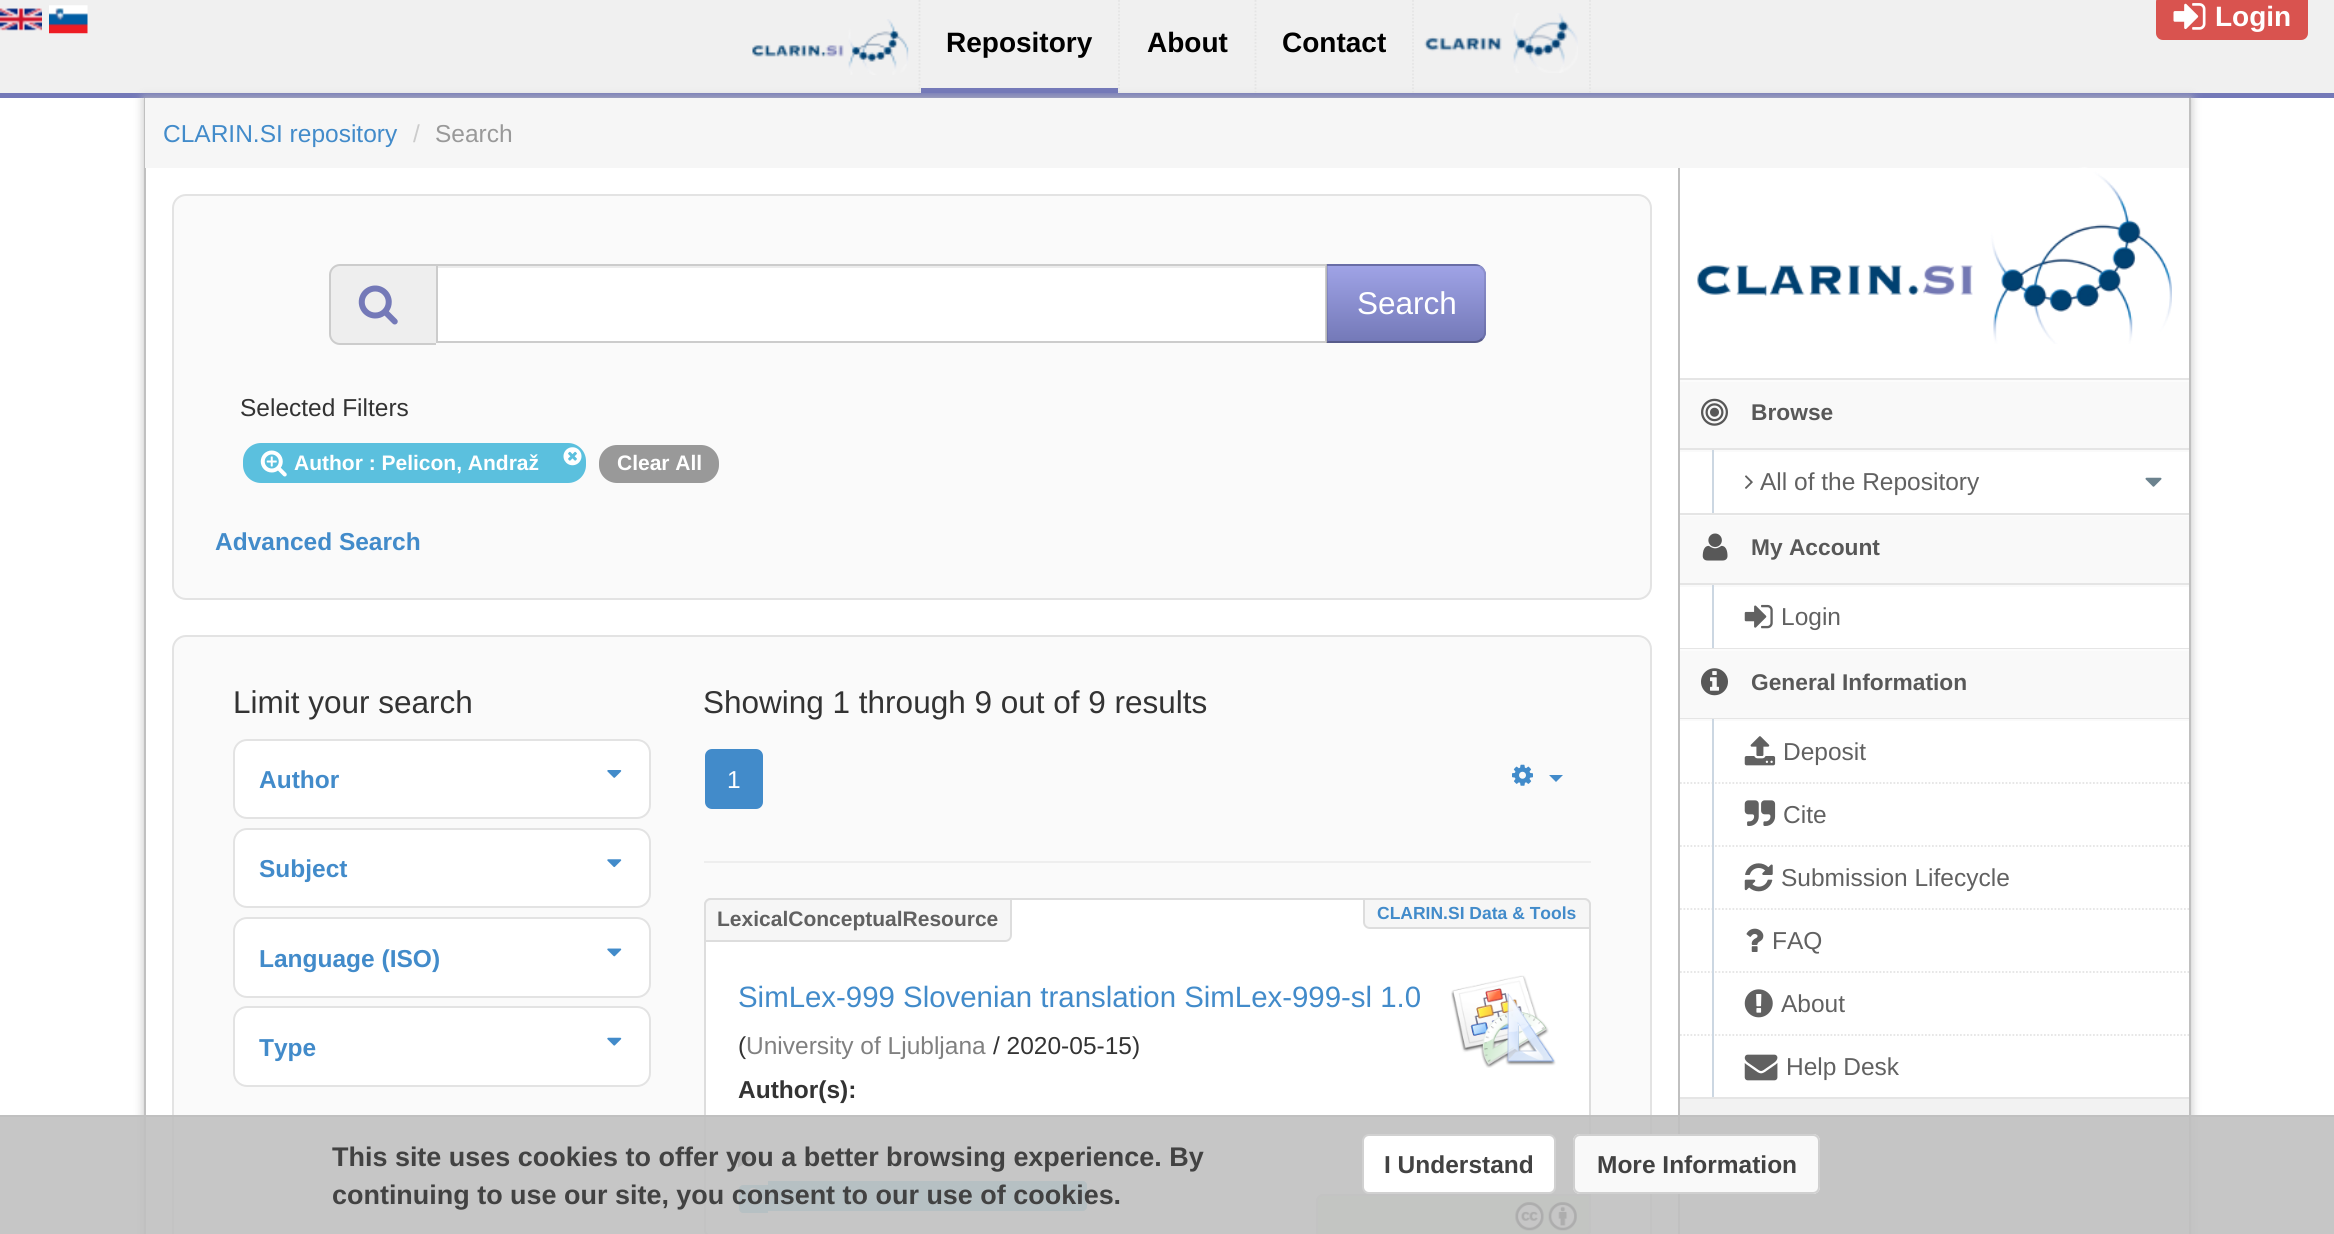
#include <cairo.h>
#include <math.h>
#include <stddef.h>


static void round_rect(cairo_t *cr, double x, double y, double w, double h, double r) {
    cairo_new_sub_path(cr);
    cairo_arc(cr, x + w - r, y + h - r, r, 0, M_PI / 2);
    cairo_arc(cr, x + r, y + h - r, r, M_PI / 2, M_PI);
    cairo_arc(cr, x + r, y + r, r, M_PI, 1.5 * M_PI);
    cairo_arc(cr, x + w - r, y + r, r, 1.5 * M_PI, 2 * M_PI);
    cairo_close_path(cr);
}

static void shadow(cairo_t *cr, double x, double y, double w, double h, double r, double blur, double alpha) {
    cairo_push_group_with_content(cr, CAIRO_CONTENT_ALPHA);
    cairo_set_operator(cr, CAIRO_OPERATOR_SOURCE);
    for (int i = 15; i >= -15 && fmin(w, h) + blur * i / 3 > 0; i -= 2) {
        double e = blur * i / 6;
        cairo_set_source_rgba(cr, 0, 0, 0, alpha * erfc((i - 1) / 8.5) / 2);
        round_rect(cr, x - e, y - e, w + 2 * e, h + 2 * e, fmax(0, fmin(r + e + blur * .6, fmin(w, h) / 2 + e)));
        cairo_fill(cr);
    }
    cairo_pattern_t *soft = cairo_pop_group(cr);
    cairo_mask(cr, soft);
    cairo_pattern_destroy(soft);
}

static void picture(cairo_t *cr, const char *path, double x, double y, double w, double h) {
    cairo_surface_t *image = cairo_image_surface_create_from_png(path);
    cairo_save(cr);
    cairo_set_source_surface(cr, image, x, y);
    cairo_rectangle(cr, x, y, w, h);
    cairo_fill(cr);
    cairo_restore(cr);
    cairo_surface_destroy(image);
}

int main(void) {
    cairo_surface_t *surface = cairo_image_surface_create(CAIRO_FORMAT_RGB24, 2334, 1234);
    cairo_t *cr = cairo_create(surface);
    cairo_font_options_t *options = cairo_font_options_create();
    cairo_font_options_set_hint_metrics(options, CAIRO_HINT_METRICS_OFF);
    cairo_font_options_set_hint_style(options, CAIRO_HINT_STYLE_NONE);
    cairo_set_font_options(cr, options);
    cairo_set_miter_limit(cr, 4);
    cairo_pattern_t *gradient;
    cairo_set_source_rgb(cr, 1, 1, 1);
    cairo_paint(cr);
    cairo_set_source_rgb(cr, 0.941, 0.941, 0.941);
    cairo_rectangle(cr, 0, 0, 2334, 93);
    cairo_fill(cr);
    picture(cr, "img1.png", 0, 8, 42, 23);
    picture(cr, "img2.png", 49, 5, 39, 29);
    cairo_set_source_rgb(cr, 0.851, 0.325, 0.31);
    cairo_new_path(cr);
    cairo_move_to(cr, 2163, -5);
    cairo_line_to(cr, 2214, -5);
    cairo_line_to(cr, 2214, 40);
    cairo_line_to(cr, 2163, 40);
    cairo_curve_to(cr, 2159, 40, 2156, 37, 2156, 33);
    cairo_line_to(cr, 2156, 2);
    cairo_curve_to(cr, 2156, -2, 2159, -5, 2163, -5);
    cairo_close_path(cr);
    cairo_fill(cr);
    cairo_new_path(cr);
    cairo_move_to(cr, 2214, -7);
    cairo_line_to(cr, 2301, -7);
    cairo_curve_to(cr, 2305, -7, 2308, -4, 2308, 0);
    cairo_line_to(cr, 2308, 33);
    cairo_curve_to(cr, 2308, 37, 2305, 40, 2301, 40);
    cairo_line_to(cr, 2214, 40);
    cairo_close_path(cr);
    cairo_fill(cr);
    picture(cr, "img3.png", 2173, 3, 33, 27);
    cairo_select_font_face(cr, "Liberation Sans", CAIRO_FONT_SLANT_NORMAL, CAIRO_FONT_WEIGHT_BOLD);
    cairo_set_font_size(cr, 28);
    cairo_set_source_rgb(cr, 1, 1, 1);
    cairo_move_to(cr, 2215, 26);
    cairo_show_text(cr, "Login");
    cairo_set_source_rgb(cr, 0.455, 0.475, 0.722);
    cairo_rectangle(cr, 0, 93, 2334, 5);
    cairo_fill(cr);
    cairo_save(cr);
    cairo_set_fill_rule(cr, CAIRO_FILL_RULE_EVEN_ODD);
    cairo_new_path(cr);
    cairo_move_to(cr, 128, 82);
    cairo_line_to(cr, 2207, 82);
    cairo_line_to(cr, 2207, 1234);
    cairo_line_to(cr, 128, 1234);
    cairo_close_path(cr);
    cairo_move_to(cr, 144, 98);
    cairo_line_to(cr, 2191, 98);
    cairo_line_to(cr, 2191, 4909);
    cairo_line_to(cr, 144, 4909);
    cairo_close_path(cr);
    cairo_clip(cr);
    cairo_set_source_rgb(cr, 0.753, 0.753, 0.753);
    shadow(cr, 144, 98, 2047, 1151, 0, 5, 1);
    cairo_restore(cr);
    cairo_new_path(cr);
    cairo_move_to(cr, 919.5, 0);
    cairo_line_to(cr, 919.5, 93);
    cairo_set_source_rgb(cr, 0.894, 0.894, 0.894);
    cairo_set_line_width(cr, 1.8);
    cairo_set_dash(cr, (double[]){1.75, 1.75}, 2, 0);
    cairo_stroke(cr);
    picture(cr, "img4.png", 752, 19, 157, 56);
    cairo_new_path(cr);
    cairo_move_to(cr, 1119, 0);
    cairo_line_to(cr, 1119, 93);
    cairo_stroke(cr);
    cairo_set_source_rgb(cr, 0.455, 0.475, 0.722);
    cairo_rectangle(cr, 921, 88, 197, 5);
    cairo_fill(cr);
    cairo_set_source_rgb(cr, 0, 0, 0);
    cairo_move_to(cr, 946, 52);
    cairo_show_text(cr, "Repository");
    cairo_new_path(cr);
    cairo_move_to(cr, 1255.5, 0);
    cairo_line_to(cr, 1255.5, 93);
    cairo_set_source_rgb(cr, 0.894, 0.894, 0.894);
    cairo_stroke(cr);
    cairo_set_source_rgb(cr, 0, 0, 0);
    cairo_move_to(cr, 1147, 52);
    cairo_show_text(cr, "About");
    cairo_new_path(cr);
    cairo_move_to(cr, 1413, 0);
    cairo_line_to(cr, 1413, 93);
    cairo_set_source_rgb(cr, 0.894, 0.894, 0.894);
    cairo_stroke(cr);
    cairo_set_source_rgb(cr, 0, 0, 0);
    cairo_move_to(cr, 1282, 52);
    cairo_show_text(cr, "Contact");
    cairo_new_path(cr);
    cairo_move_to(cr, 1590, 0);
    cairo_line_to(cr, 1590, 93);
    cairo_set_source_rgb(cr, 0.894, 0.894, 0.894);
    cairo_stroke(cr);
    picture(cr, "img5.png", 1424, 13, 154, 60);
    cairo_set_source_rgb(cr, 0.753, 0.753, 0.753);
    cairo_rectangle(cr, 2189, 98, 2, 1136);
    cairo_fill(cr);
    cairo_rectangle(cr, 144, 98, 2, 1136);
    cairo_fill(cr);
    cairo_set_source_rgb(cr, 0.961, 0.961, 0.961);
    cairo_rectangle(cr, 145, 98, 2044, 70);
    cairo_fill(cr);
    cairo_select_font_face(cr, "Liberation Sans", CAIRO_FONT_SLANT_NORMAL, CAIRO_FONT_WEIGHT_NORMAL);
    cairo_set_font_size(cr, 24.5);
    cairo_set_source_rgb(cr, 0.259, 0.545, 0.792);
    cairo_move_to(cr, 163, 142);
    cairo_show_text(cr, "CLARIN.SI repository");
    cairo_set_source_rgb(cr, 0.8, 0.8, 0.8);
    cairo_move_to(cr, 413, 142);
    cairo_show_text(cr, "/");
    cairo_set_source_rgb(cr, 0.6, 0.6, 0.6);
    cairo_move_to(cr, 435, 142);
    cairo_show_text(cr, "Search");
    cairo_set_source_rgb(cr, 0.98, 0.98, 0.98);
    round_rect(cr, 173, 195, 1478, 404, 13);
    cairo_fill_preserve(cr);
    cairo_set_source_rgb(cr, 0.89, 0.89, 0.89);
    cairo_set_line_width(cr, 2);
    cairo_set_dash(cr, NULL, 0, 0);
    cairo_stroke(cr);
    cairo_set_source_rgb(cr, 0.933, 0.933, 0.933);
    cairo_new_path(cr);
    cairo_move_to(cr, 340, 264);
    cairo_line_to(cr, 436, 264);
    cairo_line_to(cr, 436, 345);
    cairo_line_to(cr, 340, 345);
    cairo_curve_to(cr, 334, 345, 329, 340, 329, 334);
    cairo_line_to(cr, 329, 275);
    cairo_curve_to(cr, 329, 269, 334, 264, 340, 264);
    cairo_close_path(cr);
    cairo_fill(cr);
    cairo_set_source_rgb(cr, 0.8, 0.8, 0.8);
    cairo_set_fill_rule(cr, CAIRO_FILL_RULE_EVEN_ODD);
    cairo_new_path(cr);
    cairo_move_to(cr, 340, 264);
    cairo_line_to(cr, 436, 264);
    cairo_line_to(cr, 436, 345);
    cairo_line_to(cr, 340, 345);
    cairo_curve_to(cr, 334, 345, 329, 340, 329, 334);
    cairo_line_to(cr, 329, 275);
    cairo_curve_to(cr, 329, 269, 334, 264, 340, 264);
    cairo_close_path(cr);
    cairo_move_to(cr, 340, 266);
    cairo_line_to(cr, 436, 266);
    cairo_line_to(cr, 436, 343);
    cairo_line_to(cr, 340, 343);
    cairo_curve_to(cr, 335, 343, 331, 339, 331, 334);
    cairo_line_to(cr, 331, 275);
    cairo_curve_to(cr, 331, 270, 335, 266, 340, 266);
    cairo_close_path(cr);
    cairo_fill(cr);
    picture(cr, "img6.png", 358, 285, 40, 40);
    cairo_set_source_rgb(cr, 1, 1, 1);
    cairo_rectangle(cr, 438, 268, 887, 73);
    cairo_fill(cr);
    cairo_set_source_rgb(cr, 0.925, 0.925, 0.925);
    cairo_rectangle(cr, 438, 266, 887, 2);
    cairo_fill(cr);
    cairo_rectangle(cr, 437, 265, 889, 77);
    cairo_set_source_rgb(cr, 0.8, 0.8, 0.8);
    cairo_stroke(cr);
    cairo_set_source_rgb(cr, 0.455, 0.475, 0.722);
    cairo_new_path(cr);
    cairo_move_to(cr, 1327, 264);
    cairo_line_to(cr, 1475, 264);
    cairo_curve_to(cr, 1481, 264, 1486, 269, 1486, 275);
    cairo_line_to(cr, 1486, 332);
    cairo_curve_to(cr, 1486, 338, 1481, 343, 1475, 343);
    cairo_line_to(cr, 1327, 343);
    cairo_close_path(cr);
    cairo_fill(cr);
    cairo_save(cr);
    cairo_set_fill_rule(cr, CAIRO_FILL_RULE_WINDING);
    cairo_new_path(cr);
    cairo_move_to(cr, 1327, 264);
    cairo_line_to(cr, 1475, 264);
    cairo_curve_to(cr, 1481, 264, 1486, 269, 1486, 275);
    cairo_line_to(cr, 1486, 332);
    cairo_curve_to(cr, 1486, 338, 1481, 343, 1475, 343);
    cairo_line_to(cr, 1327, 343);
    cairo_close_path(cr);
    cairo_clip(cr);
    gradient = cairo_pattern_create_linear(1406, 266, 1406, 341);
    cairo_pattern_add_color_stop_rgba(gradient, 0, 0.624, 0.639, 0.902, 1);
    cairo_pattern_add_color_stop_rgba(gradient, 1, 0.455, 0.475, 0.722, 1);
    cairo_set_source(cr, gradient);
    cairo_pattern_destroy(gradient);
    cairo_rectangle(cr, 1327, 266, 159, 75);
    cairo_fill(cr);
    cairo_restore(cr);
    cairo_set_source_rgba(cr, 0, 0, 0, 0.1);
    cairo_set_fill_rule(cr, CAIRO_FILL_RULE_WINDING);
    cairo_new_path(cr);
    cairo_move_to(cr, 1326, 264);
    cairo_line_to(cr, 1477, 264);
    cairo_curve_to(cr, 1479, 265, 1481, 266, 1483, 267);
    cairo_line_to(cr, 1481, 269);
    cairo_curve_to(cr, 1480, 267, 1478, 266, 1475, 266);
    cairo_line_to(cr, 1328, 266);
    cairo_close_path(cr);
    cairo_fill(cr);
    cairo_new_path(cr);
    cairo_move_to(cr, 1486, 334);
    cairo_curve_to(cr, 1485, 336, 1484, 338, 1483, 340);
    cairo_line_to(cr, 1481, 338);
    cairo_curve_to(cr, 1483, 337, 1484, 335, 1484, 332);
    cairo_line_to(cr, 1484, 275);
    cairo_curve_to(cr, 1484, 272, 1483, 270, 1481, 269);
    cairo_line_to(cr, 1483, 267);
    cairo_curve_to(cr, 1484, 269, 1485, 271, 1486, 273);
    cairo_close_path(cr);
    cairo_fill(cr);
    cairo_set_source_rgba(cr, 0, 0, 0, 0.25);
    cairo_new_path(cr);
    cairo_move_to(cr, 1326, 343);
    cairo_line_to(cr, 1475, 343);
    cairo_curve_to(cr, 1478, 343, 1481, 342, 1483, 340);
    cairo_line_to(cr, 1481, 338);
    cairo_curve_to(cr, 1480, 340, 1477, 341, 1475, 341);
    cairo_line_to(cr, 1328, 341);
    cairo_close_path(cr);
    cairo_fill(cr);
    cairo_set_source_rgba(cr, 0, 0, 0, 0.1);
    cairo_new_path(cr);
    cairo_move_to(cr, 1328, 266);
    cairo_line_to(cr, 1326, 264);
    cairo_line_to(cr, 1326, 343);
    cairo_line_to(cr, 1328, 341);
    cairo_close_path(cr);
    cairo_fill(cr);
    cairo_set_font_size(cr, 31.5);
    cairo_set_source_rgb(cr, 1, 1, 1);
    cairo_move_to(cr, 1357, 314);
    cairo_show_text(cr, "Search");
    cairo_set_font_size(cr, 24.5);
    cairo_set_source_rgb(cr, 0.2, 0.2, 0.2);
    cairo_move_to(cr, 240, 416);
    cairo_show_text(cr, "Selected Filters");
    cairo_set_source_rgb(cr, 0.357, 0.753, 0.871);
    round_rect(cr, 243, 443, 343, 40, 18);
    cairo_fill(cr);
    picture(cr, "img7.png", 260, 450, 27, 27);
    cairo_select_font_face(cr, "Liberation Sans", CAIRO_FONT_SLANT_NORMAL, CAIRO_FONT_WEIGHT_BOLD);
    cairo_set_font_size(cr, 21);
    cairo_set_source_rgb(cr, 1, 1, 1);
    cairo_move_to(cr, 294, 470);
    cairo_show_text(cr, "Author : Pelicon, Andraž");
    picture(cr, "img8.png", 563, 447, 19, 19);
    cairo_set_source_rgb(cr, 0.6, 0.6, 0.6);
    round_rect(cr, 599, 445, 120, 38, 18);
    cairo_fill(cr);
    cairo_set_source_rgb(cr, 1, 1, 1);
    cairo_move_to(cr, 617, 470);
    cairo_show_text(cr, "Clear All");
    cairo_set_font_size(cr, 24.5);
    cairo_set_source_rgb(cr, 0.259, 0.545, 0.792);
    cairo_move_to(cr, 215, 550);
    cairo_show_text(cr, "Advanced Search");
    cairo_set_source_rgb(cr, 0.98, 0.98, 0.98);
    round_rect(cr, 173, 636, 1478, 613, 13);
    cairo_fill_preserve(cr);
    cairo_set_source_rgb(cr, 0.89, 0.89, 0.89);
    cairo_stroke(cr);
    cairo_select_font_face(cr, "Liberation Sans", CAIRO_FONT_SLANT_NORMAL, CAIRO_FONT_WEIGHT_NORMAL);
    cairo_set_font_size(cr, 31.5);
    cairo_set_source_rgb(cr, 0.2, 0.2, 0.2);
    cairo_move_to(cr, 233, 713);
    cairo_show_text(cr, "Limit your search");
    cairo_set_source_rgb(cr, 1, 1, 1);
    round_rect(cr, 234, 740, 416, 78, 13);
    cairo_fill_preserve(cr);
    cairo_set_source_rgb(cr, 0.89, 0.89, 0.89);
    cairo_stroke(cr);
    cairo_select_font_face(cr, "Liberation Sans", CAIRO_FONT_SLANT_NORMAL, CAIRO_FONT_WEIGHT_BOLD);
    cairo_set_font_size(cr, 24.5);
    cairo_set_source_rgb(cr, 0.259, 0.545, 0.792);
    cairo_move_to(cr, 259, 788);
    cairo_show_text(cr, "Author");
    picture(cr, "img9.png", 607, 770, 15, 8);
    cairo_set_source_rgb(cr, 1, 1, 1);
    round_rect(cr, 234, 829, 416, 78, 13);
    cairo_fill_preserve(cr);
    cairo_set_source_rgb(cr, 0.89, 0.89, 0.89);
    cairo_stroke(cr);
    cairo_set_source_rgb(cr, 0.259, 0.545, 0.792);
    cairo_move_to(cr, 259, 877);
    cairo_show_text(cr, "Subject");
    picture(cr, "img10.png", 607, 859, 15, 9);
    cairo_set_source_rgb(cr, 1, 1, 1);
    round_rect(cr, 234, 918, 416, 79, 13);
    cairo_fill_preserve(cr);
    cairo_set_source_rgb(cr, 0.89, 0.89, 0.89);
    cairo_stroke(cr);
    cairo_set_source_rgb(cr, 0.259, 0.545, 0.792);
    cairo_move_to(cr, 259, 967);
    cairo_show_text(cr, "Language (ISO)");
    picture(cr, "img11.png", 607, 948, 15, 9);
    cairo_set_source_rgb(cr, 1, 1, 1);
    round_rect(cr, 234, 1007, 416, 79, 13);
    cairo_fill_preserve(cr);
    cairo_set_source_rgb(cr, 0.89, 0.89, 0.89);
    cairo_stroke(cr);
    cairo_set_source_rgb(cr, 0.259, 0.545, 0.792);
    cairo_move_to(cr, 259, 1056);
    cairo_show_text(cr, "Type");
    picture(cr, "img12.png", 607, 1037, 15, 9);
    cairo_select_font_face(cr, "Liberation Sans", CAIRO_FONT_SLANT_NORMAL, CAIRO_FONT_WEIGHT_NORMAL);
    cairo_set_font_size(cr, 31.5);
    cairo_set_source_rgb(cr, 0.2, 0.2, 0.2);
    cairo_move_to(cr, 703, 713);
    cairo_show_text(cr, "Showing 1 through 9 out of 9 results");
    cairo_set_source_rgb(cr, 0.259, 0.545, 0.792);
    round_rect(cr, 706, 750, 56, 58, 6);
    cairo_fill_preserve(cr);
    cairo_stroke(cr);
    cairo_set_font_size(cr, 24.5);
    cairo_set_source_rgb(cr, 1, 1, 1);
    cairo_move_to(cr, 727, 788);
    cairo_show_text(cr, "1");
    picture(cr, "img13.png", 1512, 764, 21, 22);
    cairo_set_source_rgb(cr, 0.259, 0.545, 0.792);
    cairo_new_path(cr);
    cairo_move_to(cr, 1549, 775);
    cairo_line_to(cr, 1563, 775);
    cairo_line_to(cr, 1556, 782);
    cairo_close_path(cr);
    cairo_fill(cr);
    cairo_set_source_rgb(cr, 0.933, 0.933, 0.933);
    cairo_rectangle(cr, 704, 861, 887, 2);
    cairo_fill(cr);
    cairo_set_source_rgb(cr, 1, 1, 1);
    round_rect(cr, 705, 899, 885, 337, 6);
    cairo_fill_preserve(cr);
    cairo_set_source_rgb(cr, 0.867, 0.867, 0.867);
    cairo_stroke(cr);
    cairo_set_source_rgb(cr, 0.961, 0.961, 0.961);
    cairo_new_path(cr);
    cairo_move_to(cr, 711, 899);
    cairo_line_to(cr, 1011, 899);
    cairo_line_to(cr, 1011, 935);
    cairo_curve_to(cr, 1011, 938.5, 1008.5, 941, 1005, 941);
    cairo_line_to(cr, 705, 941);
    cairo_line_to(cr, 705, 905);
    cairo_curve_to(cr, 705, 901.5, 707.5, 899, 711, 899);
    cairo_close_path(cr);
    cairo_fill_preserve(cr);
    cairo_set_source_rgb(cr, 0.867, 0.867, 0.867);
    cairo_stroke(cr);
    cairo_select_font_face(cr, "Liberation Sans", CAIRO_FONT_SLANT_NORMAL, CAIRO_FONT_WEIGHT_BOLD);
    cairo_set_font_size(cr, 21);
    cairo_set_source_rgb(cr, 0.38, 0.38, 0.38);
    cairo_move_to(cr, 717, 926);
    cairo_show_text(cr, "LexicalConceptualResource");
    cairo_set_source_rgb(cr, 0.961, 0.961, 0.961);
    cairo_new_path(cr);
    cairo_move_to(cr, 1364, 899);
    cairo_line_to(cr, 1584, 899);
    cairo_curve_to(cr, 1587.5, 899, 1590, 901.5, 1590, 905);
    cairo_line_to(cr, 1590, 928);
    cairo_line_to(cr, 1370, 928);
    cairo_curve_to(cr, 1366.5, 928, 1364, 925.5, 1364, 922);
    cairo_close_path(cr);
    cairo_fill_preserve(cr);
    cairo_set_source_rgb(cr, 0.867, 0.867, 0.867);
    cairo_stroke(cr);
    cairo_set_font_size(cr, 17.5);
    cairo_set_source_rgb(cr, 0.259, 0.545, 0.792);
    cairo_move_to(cr, 1377, 919);
    cairo_show_text(cr, "CLARIN.SI Data & Tools");
    cairo_select_font_face(cr, "Liberation Sans", CAIRO_FONT_SLANT_NORMAL, CAIRO_FONT_WEIGHT_NORMAL);
    cairo_set_font_size(cr, 29.4);
    cairo_move_to(cr, 738, 1007);
    cairo_show_text(cr, "SimLex-999 Slovenian translation SimLex-999-sl 1.0");
    picture(cr, "img14.png", 1451, 975, 105, 93);
    cairo_set_font_size(cr, 24.5);
    cairo_set_source_rgb(cr, 0.2, 0.2, 0.2);
    cairo_move_to(cr, 738, 1054);
    cairo_show_text(cr, "(");
    cairo_set_source_rgb(cr, 0.502, 0.502, 0.502);
    cairo_move_to(cr, 746, 1054);
    cairo_show_text(cr, "University of Ljubljana");
    cairo_set_source_rgb(cr, 0.2, 0.2, 0.2);
    cairo_move_to(cr, 993, 1054);
    cairo_show_text(cr, "/ 2020-05-15)");
    cairo_select_font_face(cr, "Liberation Sans", CAIRO_FONT_SLANT_NORMAL, CAIRO_FONT_WEIGHT_BOLD);
    cairo_move_to(cr, 738, 1098);
    cairo_show_text(cr, "Author(s):");
    cairo_new_path(cr);
    cairo_move_to(cr, 738, 1151);
    cairo_line_to(cr, 752, 1159);
    cairo_line_to(cr, 738, 1167.5);
    cairo_close_path(cr);
    cairo_fill(cr);
    cairo_set_source_rgb(cr, 0.357, 0.753, 0.871);
    cairo_new_path(cr);
    cairo_move_to(cr, 743, 1185);
    cairo_line_to(cr, 768, 1185);
    cairo_line_to(cr, 768, 1213);
    cairo_line_to(cr, 743, 1213);
    cairo_curve_to(cr, 741, 1213, 739, 1211, 739, 1209);
    cairo_line_to(cr, 739, 1189);
    cairo_curve_to(cr, 739, 1187, 741, 1185, 743, 1185);
    cairo_close_path(cr);
    cairo_fill(cr);
    cairo_new_path(cr);
    cairo_move_to(cr, 768, 1181);
    cairo_line_to(cr, 1083, 1181);
    cairo_curve_to(cr, 1085, 1181, 1087, 1183, 1087, 1185);
    cairo_line_to(cr, 1087, 1207);
    cairo_curve_to(cr, 1087, 1209, 1085, 1211, 1083, 1211);
    cairo_line_to(cr, 768, 1211);
    cairo_close_path(cr);
    cairo_fill(cr);
    picture(cr, "img15.png", 749, 1187, 15, 17);
    cairo_set_source_rgb(cr, 0.875, 0.941, 0.847);
    cairo_new_path(cr);
    cairo_move_to(cr, 1323, 1195);
    cairo_line_to(cr, 1590, 1195);
    cairo_line_to(cr, 1590, 1230);
    cairo_curve_to(cr, 1590, 1233.5, 1587.5, 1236, 1584, 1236);
    cairo_line_to(cr, 1317, 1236);
    cairo_line_to(cr, 1317, 1201);
    cairo_curve_to(cr, 1317, 1197.5, 1319.5, 1195, 1323, 1195);
    cairo_close_path(cr);
    cairo_fill_preserve(cr);
    cairo_set_source_rgb(cr, 0.867, 0.867, 0.867);
    cairo_stroke(cr);
    picture(cr, "img16.png", 1515, 1202, 29, 29);
    picture(cr, "img17.png", 1548, 1202, 29, 29);
    cairo_set_source_rgb(cr, 0.949, 0.949, 0.949);
    cairo_rectangle(cr, 1680, 1099, 509, 135);
    cairo_fill(cr);
    cairo_set_source_rgb(cr, 0.753, 0.753, 0.753);
    cairo_rectangle(cr, 1678, 168, 2, 1066);
    cairo_fill(cr);
    cairo_set_source_rgb(cr, 0.898, 0.898, 0.898);
    cairo_rectangle(cr, 1680, 378, 509, 2);
    cairo_fill(cr);
    picture(cr, "img18.png", 1697, 167, 475, 177);
    cairo_set_source_rgb(cr, 0.988, 0.988, 0.988);
    cairo_rectangle(cr, 1680, 380, 509, 2);
    cairo_fill(cr);
    cairo_set_source_rgb(cr, 0.898, 0.898, 0.898);
    cairo_rectangle(cr, 1680, 513, 509, 2);
    cairo_fill(cr);
    cairo_set_source_rgb(cr, 0.976, 0.976, 0.976);
    cairo_rectangle(cr, 1680, 382, 509, 66);
    cairo_fill(cr);
    picture(cr, "img19.png", 1701, 398, 27, 28);
    cairo_set_font_size(cr, 22.75);
    cairo_set_source_rgb(cr, 0.345, 0.345, 0.345);
    cairo_move_to(cr, 1751, 420);
    cairo_show_text(cr, "Browse");
    cairo_set_source_rgb(cr, 0.898, 0.898, 0.898);
    cairo_rectangle(cr, 1680, 448, 509, 2);
    cairo_fill(cr);
    cairo_set_source_rgb(cr, 0.98, 0.98, 0.98);
    cairo_rectangle(cr, 1680, 450, 509, 2);
    cairo_fill(cr);
    cairo_set_source_rgb(cr, 0.8, 0.843, 0.886);
    cairo_rectangle(cr, 1712, 450, 2, 63);
    cairo_fill(cr);
    picture(cr, "img20.png", 1745, 475, 8, 14);
    cairo_select_font_face(cr, "Liberation Sans", CAIRO_FONT_SLANT_NORMAL, CAIRO_FONT_WEIGHT_NORMAL);
    cairo_set_font_size(cr, 24.5);
    cairo_set_source_rgb(cr, 0.38, 0.38, 0.38);
    cairo_move_to(cr, 1760, 490);
    cairo_show_text(cr, "All of the Repository");
    picture(cr, "img21.png", 2145, 477, 17, 10);
    cairo_set_source_rgb(cr, 0.988, 0.988, 0.988);
    cairo_rectangle(cr, 1680, 515, 509, 1);
    cairo_fill(cr);
    cairo_set_source_rgb(cr, 0.898, 0.898, 0.898);
    cairo_rectangle(cr, 1680, 648, 509, 1);
    cairo_fill(cr);
    cairo_set_source_rgb(cr, 0.976, 0.976, 0.976);
    cairo_rectangle(cr, 1680, 516, 509, 67);
    cairo_fill(cr);
    picture(cr, "img22.png", 1702, 533, 26, 28);
    cairo_select_font_face(cr, "Liberation Sans", CAIRO_FONT_SLANT_NORMAL, CAIRO_FONT_WEIGHT_BOLD);
    cairo_set_font_size(cr, 22.75);
    cairo_set_source_rgb(cr, 0.345, 0.345, 0.345);
    cairo_move_to(cr, 1751, 555);
    cairo_show_text(cr, "My Account");
    cairo_set_source_rgb(cr, 0.898, 0.898, 0.898);
    cairo_rectangle(cr, 1680, 583, 509, 2);
    cairo_fill(cr);
    cairo_set_source_rgb(cr, 0.98, 0.98, 0.98);
    cairo_rectangle(cr, 1680, 585, 509, 2);
    cairo_fill(cr);
    cairo_set_source_rgb(cr, 0.8, 0.843, 0.886);
    cairo_rectangle(cr, 1712, 585, 2, 63);
    cairo_fill(cr);
    picture(cr, "img23.png", 1744, 604, 29, 25);
    cairo_select_font_face(cr, "Liberation Sans", CAIRO_FONT_SLANT_NORMAL, CAIRO_FONT_WEIGHT_NORMAL);
    cairo_set_font_size(cr, 24.5);
    cairo_set_source_rgb(cr, 0.38, 0.38, 0.38);
    cairo_move_to(cr, 1781, 625);
    cairo_show_text(cr, "Login");
    cairo_set_source_rgb(cr, 0.988, 0.988, 0.988);
    cairo_rectangle(cr, 1680, 649, 509, 2);
    cairo_fill(cr);
    cairo_set_source_rgb(cr, 0.898, 0.898, 0.898);
    cairo_rectangle(cr, 1680, 1097, 509, 2);
    cairo_fill(cr);
    cairo_set_source_rgb(cr, 0.976, 0.976, 0.976);
    cairo_rectangle(cr, 1680, 651, 509, 67);
    cairo_fill(cr);
    picture(cr, "img24.png", 1701, 668, 27, 28);
    cairo_select_font_face(cr, "Liberation Sans", CAIRO_FONT_SLANT_NORMAL, CAIRO_FONT_WEIGHT_BOLD);
    cairo_set_font_size(cr, 22.75);
    cairo_set_source_rgb(cr, 0.345, 0.345, 0.345);
    cairo_move_to(cr, 1751, 690);
    cairo_show_text(cr, "General Information");
    cairo_set_source_rgb(cr, 0.898, 0.898, 0.898);
    cairo_rectangle(cr, 1680, 718, 509, 1);
    cairo_fill(cr);
    cairo_set_source_rgb(cr, 0.98, 0.98, 0.98);
    cairo_rectangle(cr, 1680, 719, 509, 2);
    cairo_fill(cr);
    cairo_new_path(cr);
    cairo_move_to(cr, 1680, 783);
    cairo_line_to(cr, 2189, 783);
    cairo_set_source_rgb(cr, 0.894, 0.894, 0.894);
    cairo_set_line_width(cr, 1.8);
    cairo_set_dash(cr, (double[]){1.75, 1.75}, 2, 0);
    cairo_stroke(cr);
    cairo_new_path(cr);
    cairo_move_to(cr, 1680, 846);
    cairo_line_to(cr, 2189, 846);
    cairo_stroke(cr);
    cairo_new_path(cr);
    cairo_move_to(cr, 1680, 909);
    cairo_line_to(cr, 2189, 909);
    cairo_stroke(cr);
    cairo_new_path(cr);
    cairo_move_to(cr, 1680, 972);
    cairo_line_to(cr, 2189, 972);
    cairo_stroke(cr);
    cairo_new_path(cr);
    cairo_move_to(cr, 1680, 1035);
    cairo_line_to(cr, 2189, 1035);
    cairo_stroke(cr);
    cairo_set_source_rgb(cr, 0.8, 0.843, 0.886);
    cairo_rectangle(cr, 1712, 719, 2, 378);
    cairo_fill(cr);
    picture(cr, "img25.png", 1744, 736, 32, 30);
    cairo_select_font_face(cr, "Liberation Sans", CAIRO_FONT_SLANT_NORMAL, CAIRO_FONT_WEIGHT_NORMAL);
    cairo_set_font_size(cr, 24.5);
    cairo_set_source_rgb(cr, 0.38, 0.38, 0.38);
    cairo_move_to(cr, 1783, 760);
    cairo_show_text(cr, "Deposit");
    picture(cr, "img26.png", 1744, 800, 32, 26);
    cairo_move_to(cr, 1783, 823);
    cairo_show_text(cr, "Cite");
    picture(cr, "img27.png", 1744, 863, 29, 29);
    cairo_move_to(cr, 1781, 886);
    cairo_show_text(cr, "Submission Lifecycle");
    picture(cr, "img28.png", 1746, 928, 18, 24);
    cairo_move_to(cr, 1772, 949);
    cairo_show_text(cr, "FAQ");
    picture(cr, "img29.png", 1744, 989, 29, 29);
    cairo_move_to(cr, 1781, 1012);
    cairo_show_text(cr, "About");
    picture(cr, "img30.png", 1744, 1054, 34, 27);
    cairo_move_to(cr, 1786, 1075);
    cairo_show_text(cr, "Help Desk");
    cairo_set_source_rgba(cr, 0.753, 0.753, 0.753, 0.9);
    cairo_rectangle(cr, 0, 1115, 2334, 119);
    cairo_fill(cr);
    cairo_rectangle(cr, 0, 1115, 2334, 2);
    cairo_fill(cr);
    cairo_select_font_face(cr, "Liberation Sans", CAIRO_FONT_SLANT_NORMAL, CAIRO_FONT_WEIGHT_BOLD);
    cairo_set_font_size(cr, 26.95);
    cairo_set_source_rgb(cr, 0.259, 0.259, 0.259);
    cairo_move_to(cr, 332, 1166);
    cairo_show_text(cr, "This site uses cookies to offer you a better browsing experience. By");
    cairo_move_to(cr, 332, 1204);
    cairo_show_text(cr, "continuing to use our site, you consent to our use of cookies.");
    cairo_set_source_rgb(cr, 1, 1, 1);
    round_rect(cr, 1363, 1135, 192, 58, 6);
    cairo_fill_preserve(cr);
    cairo_set_source_rgb(cr, 0.82, 0.82, 0.82);
    cairo_set_line_width(cr, 2);
    cairo_set_dash(cr, NULL, 0, 0);
    cairo_stroke(cr);
    cairo_set_font_size(cr, 24.5);
    cairo_set_source_rgb(cr, 0.259, 0.259, 0.259);
    cairo_move_to(cr, 1384, 1173);
    cairo_show_text(cr, "I Understand");
    cairo_set_source_rgba(cr, 1, 1, 1, 0.9);
    round_rect(cr, 1573, 1134, 247, 60, 7);
    cairo_fill(cr);
    round_rect(cr, 1574, 1135, 245, 58, 6);
    cairo_set_source_rgba(cr, 0.8, 0.8, 0.8, 0.9);
    cairo_stroke(cr);
    cairo_set_source_rgb(cr, 0.259, 0.259, 0.259);
    cairo_move_to(cr, 1597, 1173);
    cairo_show_text(cr, "More Information");
    cairo_surface_write_to_png(surface, "page.png");
    cairo_font_options_destroy(options);
    cairo_destroy(cr);
    cairo_surface_destroy(surface);
    return 0;
}
